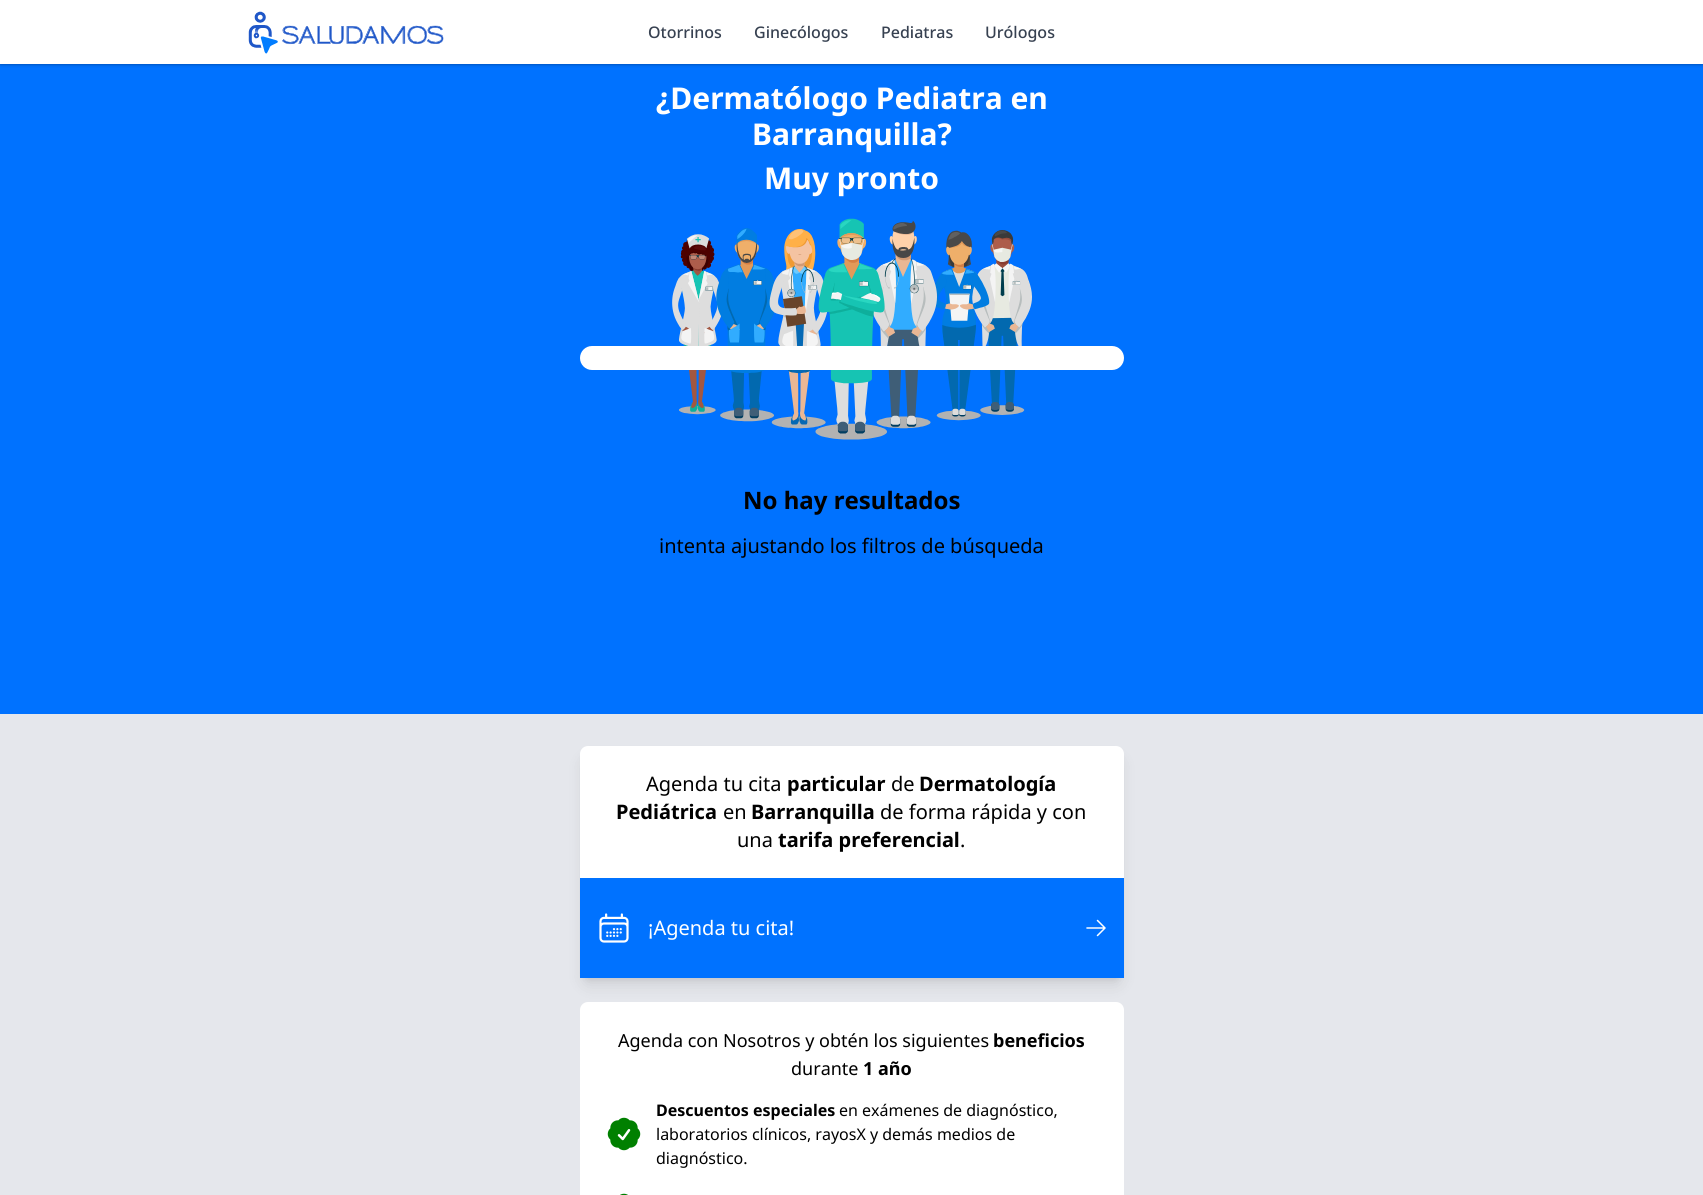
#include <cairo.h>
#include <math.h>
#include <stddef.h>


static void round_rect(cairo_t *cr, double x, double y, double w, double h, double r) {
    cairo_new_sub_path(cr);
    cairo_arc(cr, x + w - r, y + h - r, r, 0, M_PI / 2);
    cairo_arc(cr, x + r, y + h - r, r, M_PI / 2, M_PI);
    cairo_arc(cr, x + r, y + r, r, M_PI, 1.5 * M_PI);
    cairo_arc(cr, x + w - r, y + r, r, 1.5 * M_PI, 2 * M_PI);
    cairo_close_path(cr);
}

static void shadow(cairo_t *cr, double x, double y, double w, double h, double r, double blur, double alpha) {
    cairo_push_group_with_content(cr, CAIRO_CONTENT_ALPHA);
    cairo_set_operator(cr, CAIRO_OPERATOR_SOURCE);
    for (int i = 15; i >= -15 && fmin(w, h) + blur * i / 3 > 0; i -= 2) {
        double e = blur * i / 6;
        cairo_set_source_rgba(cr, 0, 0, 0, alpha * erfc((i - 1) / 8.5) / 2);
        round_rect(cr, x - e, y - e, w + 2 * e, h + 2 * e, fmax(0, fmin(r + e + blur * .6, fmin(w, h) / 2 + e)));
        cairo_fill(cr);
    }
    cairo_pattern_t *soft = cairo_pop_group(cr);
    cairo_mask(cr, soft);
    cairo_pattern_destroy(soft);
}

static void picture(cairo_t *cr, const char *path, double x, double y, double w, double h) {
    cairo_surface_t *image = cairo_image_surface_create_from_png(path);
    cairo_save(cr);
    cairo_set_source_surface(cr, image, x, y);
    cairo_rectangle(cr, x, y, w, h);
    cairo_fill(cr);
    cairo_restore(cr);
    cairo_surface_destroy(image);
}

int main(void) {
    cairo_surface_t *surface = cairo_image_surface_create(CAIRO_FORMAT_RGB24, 1703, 1195);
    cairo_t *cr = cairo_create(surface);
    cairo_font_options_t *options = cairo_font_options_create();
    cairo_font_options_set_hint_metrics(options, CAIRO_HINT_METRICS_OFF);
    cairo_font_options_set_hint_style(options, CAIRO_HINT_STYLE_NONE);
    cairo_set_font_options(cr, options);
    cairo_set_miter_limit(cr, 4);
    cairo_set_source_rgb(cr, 0, 0.447, 1);
    cairo_paint(cr);
    cairo_set_source_rgb(cr, 0, 0, 0);
    shadow(cr, 1, 2, 1701, 62, 0, 1, 0.1);
    shadow(cr, 0, 1, 1703, 64, 0, 1.5, 0.1);
    shadow(cr, 1, 2, 1701, 62, 0, 1, 0.1);
    shadow(cr, 0, 1, 1703, 64, 0, 1.5, 0.1);
    cairo_set_source_rgb(cr, 1, 1, 1);
    cairo_rectangle(cr, 0, 0, 1703, 64);
    cairo_fill(cr);
    picture(cr, "img1.png", 248, 11, 196, 43);
    cairo_select_font_face(cr, "Noto Sans Medium", CAIRO_FONT_SLANT_NORMAL, CAIRO_FONT_WEIGHT_NORMAL);
    cairo_set_font_size(cr, 16);
    cairo_set_source_rgb(cr, 0.216, 0.255, 0.318);
    cairo_move_to(cr, 648, 38);
    cairo_show_text(cr, "Otorrinos");
    cairo_move_to(cr, 754, 38);
    cairo_show_text(cr, "Ginecólogos");
    cairo_move_to(cr, 881, 38);
    cairo_show_text(cr, "Pediatras");
    cairo_move_to(cr, 985, 38);
    cairo_show_text(cr, "Urólogos");
    cairo_select_font_face(cr, "Noto Sans", CAIRO_FONT_SLANT_NORMAL, CAIRO_FONT_WEIGHT_BOLD);
    cairo_set_font_size(cr, 30);
    cairo_set_source_rgb(cr, 1, 1, 1);
    cairo_move_to(cr, 656, 109);
    cairo_show_text(cr, "¿Dermatólogo Pediatra en");
    cairo_move_to(cr, 752, 145);
    cairo_show_text(cr, "Barranquilla?");
    cairo_move_to(cr, 764, 189);
    cairo_show_text(cr, "Muy pronto");
    picture(cr, "img2.png", 672, 218, 360, 222);
    round_rect(cr, 580, 346, 544, 24, 12);
    cairo_fill(cr);
    cairo_set_font_size(cr, 24);
    cairo_set_source_rgb(cr, 0, 0, 0);
    cairo_move_to(cr, 743, 509);
    cairo_show_text(cr, "No hay resultados");
    cairo_select_font_face(cr, "Noto Sans", CAIRO_FONT_SLANT_NORMAL, CAIRO_FONT_WEIGHT_NORMAL);
    cairo_set_font_size(cr, 20);
    cairo_move_to(cr, 659, 553);
    cairo_show_text(cr, "intenta ajustando los filtros de búsqueda");
    cairo_set_source_rgb(cr, 0.898, 0.906, 0.922);
    cairo_rectangle(cr, 0, 714, 1703, 481);
    cairo_fill(cr);
    cairo_set_source_rgb(cr, 0, 0, 0);
    shadow(cr, 584, 754, 536, 224, 4, 3, 0.1);
    shadow(cr, 583, 759, 538, 226, 5, 7.5, 0.1);
    cairo_set_source_rgb(cr, 1, 1, 1);
    round_rect(cr, 580, 746, 544, 232, 8);
    cairo_fill(cr);
    cairo_set_source_rgb(cr, 0, 0, 0);
    cairo_move_to(cr, 646, 791);
    cairo_show_text(cr, "Agenda tu cita");
    cairo_select_font_face(cr, "Noto Sans", CAIRO_FONT_SLANT_NORMAL, CAIRO_FONT_WEIGHT_BOLD);
    cairo_move_to(cr, 787, 791);
    cairo_show_text(cr, "particular");
    cairo_select_font_face(cr, "Noto Sans", CAIRO_FONT_SLANT_NORMAL, CAIRO_FONT_WEIGHT_NORMAL);
    cairo_move_to(cr, 891, 791);
    cairo_show_text(cr, "de");
    cairo_select_font_face(cr, "Noto Sans", CAIRO_FONT_SLANT_NORMAL, CAIRO_FONT_WEIGHT_BOLD);
    cairo_move_to(cr, 919, 791);
    cairo_show_text(cr, "Dermatología");
    cairo_move_to(cr, 616, 819);
    cairo_show_text(cr, "Pediátrica");
    cairo_select_font_face(cr, "Noto Sans", CAIRO_FONT_SLANT_NORMAL, CAIRO_FONT_WEIGHT_NORMAL);
    cairo_move_to(cr, 723, 819);
    cairo_show_text(cr, "en");
    cairo_select_font_face(cr, "Noto Sans", CAIRO_FONT_SLANT_NORMAL, CAIRO_FONT_WEIGHT_BOLD);
    cairo_move_to(cr, 751, 819);
    cairo_show_text(cr, "Barranquilla");
    cairo_select_font_face(cr, "Noto Sans", CAIRO_FONT_SLANT_NORMAL, CAIRO_FONT_WEIGHT_NORMAL);
    cairo_move_to(cr, 880, 819);
    cairo_show_text(cr, "de forma rápida y con");
    cairo_move_to(cr, 737, 847);
    cairo_show_text(cr, "una");
    cairo_select_font_face(cr, "Noto Sans", CAIRO_FONT_SLANT_NORMAL, CAIRO_FONT_WEIGHT_BOLD);
    cairo_move_to(cr, 778, 847);
    cairo_show_text(cr, "tarifa preferencial");
    cairo_select_font_face(cr, "Noto Sans", CAIRO_FONT_SLANT_NORMAL, CAIRO_FONT_WEIGHT_NORMAL);
    cairo_move_to(cr, 960, 847);
    cairo_show_text(cr, ".");
    cairo_set_source_rgb(cr, 0, 0.447, 1);
    cairo_rectangle(cr, 580, 878, 544, 100);
    cairo_fill(cr);
    picture(cr, "img3.png", 599, 913, 30, 30);
    cairo_set_source_rgb(cr, 1, 1, 1);
    cairo_move_to(cr, 648, 935);
    cairo_show_text(cr, "¡Agenda tu cita!");
    cairo_new_path(cr);
    cairo_move_to(cr, 1097.5, 920.5);
    cairo_line_to(cr, 1105, 928);
    cairo_move_to(cr, 1105, 928);
    cairo_line_to(cr, 1097.5, 935.5);
    cairo_move_to(cr, 1105, 928);
    cairo_line_to(cr, 1087, 928);
    cairo_set_line_width(cr, 1.5);
    cairo_set_line_cap(cr, CAIRO_LINE_CAP_ROUND);
    cairo_set_line_join(cr, CAIRO_LINE_JOIN_ROUND);
    cairo_stroke(cr);
    round_rect(cr, 580, 1002, 544, 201, 8);
    cairo_fill(cr);
    cairo_set_font_size(cr, 18);
    cairo_set_source_rgb(cr, 0, 0, 0);
    cairo_move_to(cr, 618, 1047);
    cairo_show_text(cr, "Agenda con Nosotros y obtén los siguientes");
    cairo_select_font_face(cr, "Noto Sans", CAIRO_FONT_SLANT_NORMAL, CAIRO_FONT_WEIGHT_BOLD);
    cairo_move_to(cr, 993, 1047);
    cairo_show_text(cr, "beneficios");
    cairo_select_font_face(cr, "Noto Sans", CAIRO_FONT_SLANT_NORMAL, CAIRO_FONT_WEIGHT_NORMAL);
    cairo_move_to(cr, 791, 1075);
    cairo_show_text(cr, "durante");
    cairo_select_font_face(cr, "Noto Sans", CAIRO_FONT_SLANT_NORMAL, CAIRO_FONT_WEIGHT_BOLD);
    cairo_move_to(cr, 863, 1075);
    cairo_show_text(cr, "1 año");
    picture(cr, "img4.png", 607, 1117, 34, 34);
    cairo_set_font_size(cr, 16);
    cairo_move_to(cr, 656, 1116);
    cairo_show_text(cr, "Descuentos especiales");
    cairo_select_font_face(cr, "Noto Sans", CAIRO_FONT_SLANT_NORMAL, CAIRO_FONT_WEIGHT_NORMAL);
    cairo_move_to(cr, 839, 1116);
    cairo_show_text(cr, "en exámenes de diagnóstico,");
    cairo_move_to(cr, 656, 1140);
    cairo_show_text(cr, "laboratorios clínicos, rayosX y demás medios de");
    cairo_move_to(cr, 656, 1164);
    cairo_show_text(cr, "diagnóstico.");
    picture(cr, "img5.png", 620, 1193, 8, 2);
    cairo_surface_write_to_png(surface, "page.png");
    cairo_font_options_destroy(options);
    cairo_destroy(cr);
    cairo_surface_destroy(surface);
    return 0;
}
